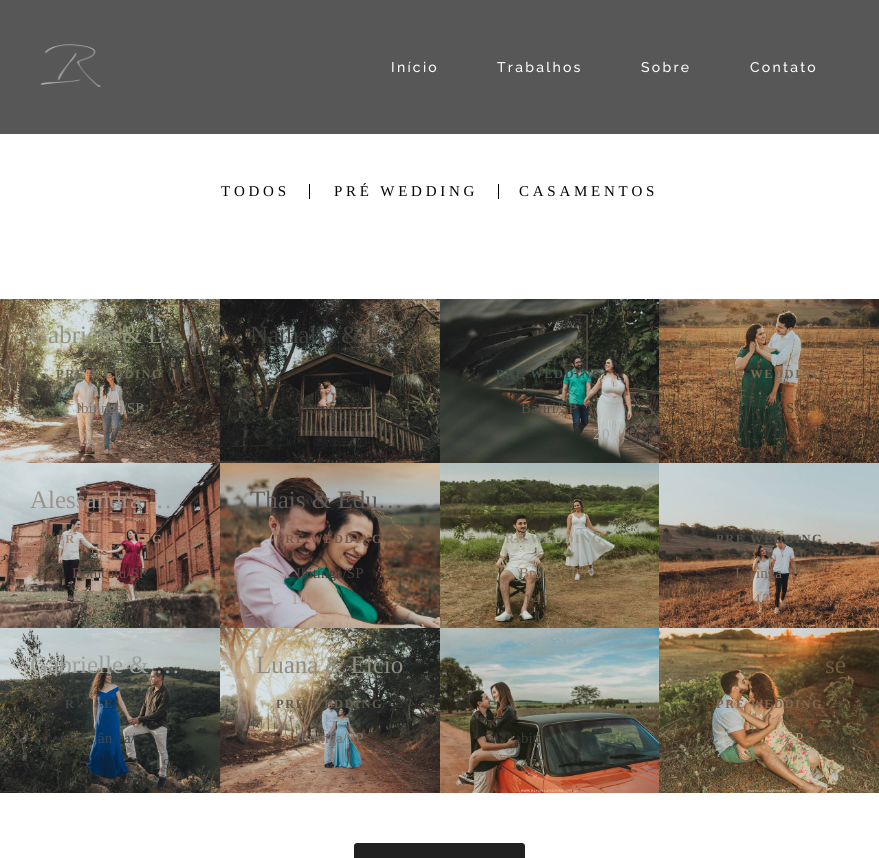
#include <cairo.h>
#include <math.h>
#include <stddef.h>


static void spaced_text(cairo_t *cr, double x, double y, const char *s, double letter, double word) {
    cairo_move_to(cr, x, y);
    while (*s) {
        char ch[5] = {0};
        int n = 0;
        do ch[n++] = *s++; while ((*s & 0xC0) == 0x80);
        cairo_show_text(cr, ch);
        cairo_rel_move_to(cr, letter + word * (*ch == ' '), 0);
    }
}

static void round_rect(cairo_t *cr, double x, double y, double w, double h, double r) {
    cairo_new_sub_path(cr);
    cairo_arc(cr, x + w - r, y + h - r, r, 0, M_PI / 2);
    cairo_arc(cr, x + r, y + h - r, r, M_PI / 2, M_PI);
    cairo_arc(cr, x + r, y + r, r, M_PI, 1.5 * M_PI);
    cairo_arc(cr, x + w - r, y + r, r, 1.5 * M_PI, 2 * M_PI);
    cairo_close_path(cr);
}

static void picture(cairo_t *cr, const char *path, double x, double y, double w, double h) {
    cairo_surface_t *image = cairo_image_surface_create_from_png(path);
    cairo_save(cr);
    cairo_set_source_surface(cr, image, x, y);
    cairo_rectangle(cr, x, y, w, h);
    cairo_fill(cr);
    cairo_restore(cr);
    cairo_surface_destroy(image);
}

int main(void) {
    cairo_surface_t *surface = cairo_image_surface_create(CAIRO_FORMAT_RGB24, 879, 858);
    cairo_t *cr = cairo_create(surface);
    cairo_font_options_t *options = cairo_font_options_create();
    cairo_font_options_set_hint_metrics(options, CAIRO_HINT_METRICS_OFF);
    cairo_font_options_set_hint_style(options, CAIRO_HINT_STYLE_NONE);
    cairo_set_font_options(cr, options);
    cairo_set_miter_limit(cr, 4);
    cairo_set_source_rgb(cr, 1, 1, 1);
    cairo_paint(cr);
    cairo_set_source_rgb(cr, 0.341, 0.341, 0.341);
    cairo_rectangle(cr, 0, 0, 879, 134);
    cairo_fill(cr);
    picture(cr, "img1.png", 40, 44, 61, 43);
    cairo_select_font_face(cr, "Raleway Medium", CAIRO_FONT_SLANT_NORMAL, CAIRO_FONT_WEIGHT_NORMAL);
    cairo_set_font_size(cr, 14);
    cairo_set_source_rgb(cr, 1, 1, 1);
    spaced_text(cr, 391, 72, "Início", 2.25, 0);
    spaced_text(cr, 497, 72, "Trabalhos", 2.25, 0);
    spaced_text(cr, 641, 72, "Sobre", 2.25, 0);
    spaced_text(cr, 750, 72, "Contato", 2.25, 0);
    cairo_set_source_rgb(cr, 0, 0, 0);
    cairo_rectangle(cr, 309, 184, 1, 15);
    cairo_fill(cr);
    cairo_select_font_face(cr, "Liberation Serif", CAIRO_FONT_SLANT_NORMAL, CAIRO_FONT_WEIGHT_NORMAL);
    cairo_set_font_size(cr, 15);
    cairo_set_source_rgb(cr, 0.012, 0.012, 0.012);
    spaced_text(cr, 221, 196, "TODOS", 3.75, 0);
    cairo_set_source_rgb(cr, 0, 0, 0);
    cairo_rectangle(cr, 498, 184, 1, 15);
    cairo_fill(cr);
    cairo_set_source_rgb(cr, 0.012, 0.012, 0.012);
    spaced_text(cr, 334, 196, "PRÉ WEDDING", 3.75, 0);
    spaced_text(cr, 519, 196, "CASAMENTOS", 3.75, 0);
    picture(cr, "img2.png", 0, 299, 220, 164);
    cairo_set_font_size(cr, 25);
    cairo_set_source_rgb(cr, 0.565, 0.576, 0.49);
    cairo_move_to(cr, 30, 343);
    cairo_show_text(cr, "Gabriele & L…");
    cairo_select_font_face(cr, "Liberation Serif", CAIRO_FONT_SLANT_NORMAL, CAIRO_FONT_WEIGHT_BOLD);
    cairo_set_font_size(cr, 12.5);
    cairo_set_source_rgb(cr, 0.424, 0.412, 0.333);
    spaced_text(cr, 56, 378, "PRÉ WEDDING", 1.5, 0);
    cairo_select_font_face(cr, "Liberation Serif", CAIRO_FONT_SLANT_NORMAL, CAIRO_FONT_WEIGHT_NORMAL);
    cairo_set_font_size(cr, 15);
    cairo_set_source_rgb(cr, 0.498, 0.467, 0.427);
    cairo_move_to(cr, 76, 413);
    cairo_show_text(cr, "Ibitinga/SP");
    picture(cr, "img3.png", 220, 299, 220, 164);
    cairo_set_font_size(cr, 25);
    cairo_set_source_rgb(cr, 0.251, 0.255, 0.243);
    cairo_move_to(cr, 250, 343);
    cairo_show_text(cr, "Nathalia & L…");
    cairo_set_font_size(cr, 15);
    cairo_set_source_rgb(cr, 0.259, 0.227, 0.196);
    cairo_move_to(cr, 296, 413);
    cairo_show_text(cr, "Ibitinga/SP");
    picture(cr, "img4.png", 440, 299, 219, 164);
    cairo_select_font_face(cr, "Liberation Serif", CAIRO_FONT_SLANT_NORMAL, CAIRO_FONT_WEIGHT_BOLD);
    cairo_set_font_size(cr, 12.5);
    cairo_set_source_rgb(cr, 0.231, 0.314, 0.278);
    spaced_text(cr, 496, 378, "PRÉ WEDDING", 1.5, 0);
    cairo_select_font_face(cr, "Liberation Serif", CAIRO_FONT_SLANT_NORMAL, CAIRO_FONT_WEIGHT_NORMAL);
    cairo_set_font_size(cr, 15);
    cairo_set_source_rgb(cr, 0.337, 0.314, 0.263);
    cairo_move_to(cr, 521, 413);
    cairo_show_text(cr, "Bariri/SP");
    cairo_set_source_rgb(cr, 0.631, 0.635, 0.616);
    spaced_text(cr, 593, 439, "20", 1.5, 0);
    picture(cr, "img5.png", 659, 299, 220, 164);
    cairo_select_font_face(cr, "Liberation Serif", CAIRO_FONT_SLANT_NORMAL, CAIRO_FONT_WEIGHT_BOLD);
    cairo_set_font_size(cr, 12.5);
    cairo_set_source_rgb(cr, 0.478, 0.404, 0.31);
    spaced_text(cr, 716, 378, "PRÉ WEDDING", 1.5, 0);
    cairo_select_font_face(cr, "Liberation Serif", CAIRO_FONT_SLANT_NORMAL, CAIRO_FONT_WEIGHT_NORMAL);
    cairo_set_font_size(cr, 15);
    cairo_set_source_rgb(cr, 0.29, 0.267, 0.196);
    cairo_move_to(cr, 786, 413);
    cairo_show_text(cr, "S");
    picture(cr, "img6.png", 0, 463, 220, 165);
    cairo_set_font_size(cr, 25);
    cairo_set_source_rgb(cr, 0.624, 0.565, 0.537);
    cairo_move_to(cr, 30, 508);
    cairo_show_text(cr, "Alessandra …");
    cairo_select_font_face(cr, "Liberation Serif", CAIRO_FONT_SLANT_NORMAL, CAIRO_FONT_WEIGHT_BOLD);
    cairo_set_font_size(cr, 12.5);
    cairo_set_source_rgb(cr, 0.631, 0.498, 0.443);
    spaced_text(cr, 56, 543, "PR", 1.5, 0);
    spaced_text(cr, 152, 543, "G", 1.5, 0);
    cairo_select_font_face(cr, "Liberation Serif", CAIRO_FONT_SLANT_NORMAL, CAIRO_FONT_WEIGHT_NORMAL);
    cairo_set_font_size(cr, 15);
    cairo_set_source_rgb(cr, 0.404, 0.282, 0.267);
    cairo_move_to(cr, 72, 578);
    cairo_show_text(cr, "Botucatu/SP");
    cairo_set_source_rgb(cr, 0.365, 0.322, 0.275);
    spaced_text(cr, 154, 604, "0", 1.5, 0);
    picture(cr, "img7.png", 220, 463, 220, 165);
    cairo_set_font_size(cr, 25);
    cairo_set_source_rgb(cr, 0.369, 0.349, 0.337);
    cairo_move_to(cr, 250, 508);
    cairo_show_text(cr, "Thais & Edu…");
    cairo_select_font_face(cr, "Liberation Serif", CAIRO_FONT_SLANT_NORMAL, CAIRO_FONT_WEIGHT_BOLD);
    cairo_set_font_size(cr, 12.5);
    cairo_set_source_rgb(cr, 0.475, 0.353, 0.298);
    spaced_text(cr, 276, 543, "PRÉ WEDDING", 1.5, 0);
    cairo_select_font_face(cr, "Liberation Serif", CAIRO_FONT_SLANT_NORMAL, CAIRO_FONT_WEIGHT_NORMAL);
    cairo_set_font_size(cr, 15);
    cairo_set_source_rgb(cr, 0.251, 0.255, 0.243);
    cairo_move_to(cr, 296, 578);
    cairo_show_text(cr, "Ibitinga/SP");
    cairo_set_source_rgb(cr, 0.698, 0.608, 0.557);
    spaced_text(cr, 291, 604, "10", 1.5, 0);
    picture(cr, "img8.png", 440, 463, 219, 165);
    cairo_select_font_face(cr, "Liberation Serif", CAIRO_FONT_SLANT_NORMAL, CAIRO_FONT_WEIGHT_BOLD);
    cairo_set_font_size(cr, 12.5);
    cairo_set_source_rgb(cr, 0.604, 0.608, 0.529);
    spaced_text(cr, 496, 543, "PRÉ WEDDING", 1.5, 0);
    cairo_select_font_face(cr, "Liberation Serif", CAIRO_FONT_SLANT_NORMAL, CAIRO_FONT_WEIGHT_NORMAL);
    cairo_set_font_size(cr, 15);
    cairo_set_source_rgb(cr, 0.51, 0.443, 0.341);
    cairo_move_to(cr, 519, 578);
    cairo_show_text(cr, "Brotas/SP");
    cairo_set_source_rgb(cr, 0.396, 0.329, 0.239);
    spaced_text(cr, 515, 604, "1143", 1.5, 0);
    picture(cr, "img9.png", 659, 463, 220, 165);
    cairo_select_font_face(cr, "Liberation Serif", CAIRO_FONT_SLANT_NORMAL, CAIRO_FONT_WEIGHT_BOLD);
    cairo_set_font_size(cr, 12.5);
    cairo_set_source_rgb(cr, 0.333, 0.322, 0.294);
    spaced_text(cr, 716, 543, "PRÉ WEDDING", 1.5, 0);
    cairo_select_font_face(cr, "Liberation Serif", CAIRO_FONT_SLANT_NORMAL, CAIRO_FONT_WEIGHT_NORMAL);
    cairo_set_font_size(cr, 15);
    cairo_set_source_rgb(cr, 0.463, 0.384, 0.333);
    cairo_move_to(cr, 735, 578);
    cairo_show_text(cr, "I");
    cairo_move_to(cr, 756, 578);
    cairo_show_text(cr, "inga");
    cairo_set_source_rgb(cr, 0.592, 0.447, 0.357);
    spaced_text(cr, 735, 604, "1042", 1.5, 0);
    picture(cr, "img10.png", 0, 628, 220, 165);
    cairo_set_font_size(cr, 25);
    cairo_set_source_rgb(cr, 0.6, 0.62, 0.604);
    cairo_move_to(cr, 30, 673);
    cairo_show_text(cr, "Gabrielle & …");
    cairo_select_font_face(cr, "Liberation Serif", CAIRO_FONT_SLANT_NORMAL, CAIRO_FONT_WEIGHT_BOLD);
    cairo_set_font_size(cr, 12.5);
    cairo_set_source_rgb(cr, 0.255, 0.275, 0.282);
    spaced_text(cr, 65, 708, "R", 1.5, 0);
    spaced_text(cr, 104, 708, "E", 1.5, 0);
    cairo_select_font_face(cr, "Liberation Serif", CAIRO_FONT_SLANT_NORMAL, CAIRO_FONT_WEIGHT_NORMAL);
    cairo_set_font_size(cr, 15);
    cairo_set_source_rgb(cr, 0.204, 0.278, 0.325);
    cairo_move_to(cr, 98, 743);
    cairo_show_text(cr, "ân");
    cairo_move_to(cr, 124, 743);
    cairo_show_text(cr, "a/");
    cairo_set_source_rgb(cr, 0.298, 0.298, 0.286);
    spaced_text(cr, 154, 769, "19", 1.5, 0);
    picture(cr, "img11.png", 220, 628, 220, 165);
    cairo_set_font_size(cr, 25);
    cairo_set_source_rgb(cr, 0.553, 0.549, 0.494);
    cairo_move_to(cr, 256, 673);
    cairo_show_text(cr, "Luana & Elcio");
    cairo_select_font_face(cr, "Liberation Serif", CAIRO_FONT_SLANT_NORMAL, CAIRO_FONT_WEIGHT_BOLD);
    cairo_set_font_size(cr, 12.5);
    cairo_set_source_rgb(cr, 0.388, 0.361, 0.306);
    spaced_text(cr, 276, 708, "PRÉ WEDDING", 1.5, 0);
    cairo_select_font_face(cr, "Liberation Serif", CAIRO_FONT_SLANT_NORMAL, CAIRO_FONT_WEIGHT_NORMAL);
    cairo_set_font_size(cr, 15);
    cairo_set_source_rgb(cr, 0.451, 0.435, 0.408);
    cairo_move_to(cr, 296, 743);
    cairo_show_text(cr, "Ibitinga/SP");
    picture(cr, "img12.png", 440, 628, 219, 165);
    cairo_set_source_rgb(cr, 0.208, 0.224, 0.196);
    cairo_move_to(cr, 521, 743);
    cairo_show_text(cr, "biti");
    cairo_set_source_rgb(cr, 0.396, 0.329, 0.239);
    spaced_text(cr, 511, 769, "1479", 1.5, 0);
    picture(cr, "img13.png", 659, 628, 220, 165);
    cairo_set_font_size(cr, 25);
    cairo_set_source_rgb(cr, 0.455, 0.357, 0.216);
    cairo_move_to(cr, 825, 673);
    cairo_show_text(cr, "sé");
    cairo_select_font_face(cr, "Liberation Serif", CAIRO_FONT_SLANT_NORMAL, CAIRO_FONT_WEIGHT_BOLD);
    cairo_set_font_size(cr, 12.5);
    cairo_set_source_rgb(cr, 0.51, 0.404, 0.306);
    spaced_text(cr, 716, 708, "PRÉ WEDDING", 1.5, 0);
    cairo_select_font_face(cr, "Liberation Serif", CAIRO_FONT_SLANT_NORMAL, CAIRO_FONT_WEIGHT_NORMAL);
    cairo_set_font_size(cr, 15);
    cairo_set_source_rgb(cr, 0.71, 0.561, 0.42);
    cairo_move_to(cr, 795, 743);
    cairo_show_text(cr, "P");
    cairo_set_source_rgb(cr, 0.651, 0.541, 0.424);
    spaced_text(cr, 818, 769, "0", 1.5, 0);
    cairo_set_source_rgb(cr, 0.129, 0.129, 0.129);
    round_rect(cr, 354.5, 843.5, 170, 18, 2.5);
    cairo_fill_preserve(cr);
    cairo_set_line_width(cr, 1);
    cairo_stroke(cr);
    cairo_surface_write_to_png(surface, "page.png");
    cairo_font_options_destroy(options);
    cairo_destroy(cr);
    cairo_surface_destroy(surface);
    return 0;
}
